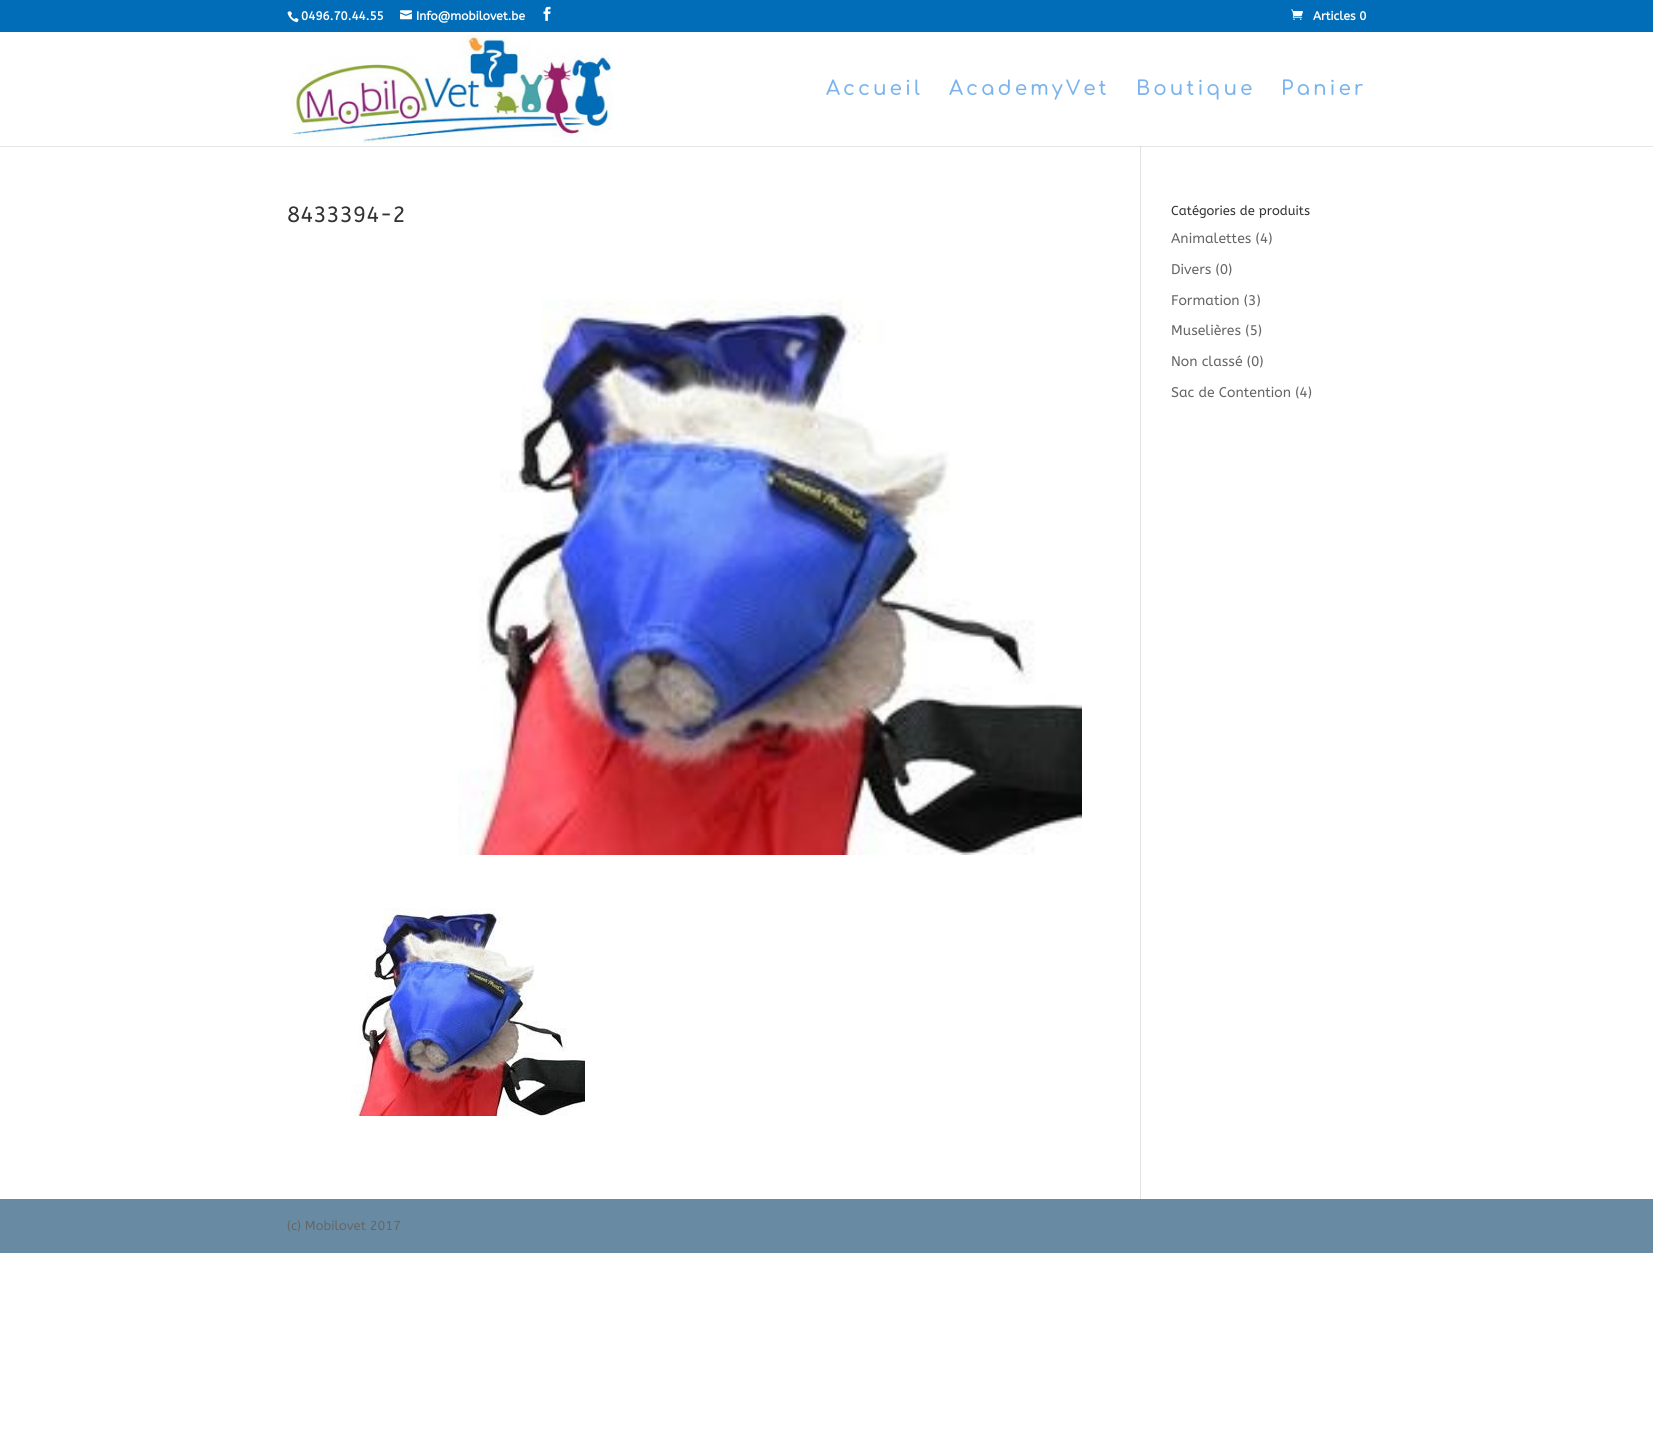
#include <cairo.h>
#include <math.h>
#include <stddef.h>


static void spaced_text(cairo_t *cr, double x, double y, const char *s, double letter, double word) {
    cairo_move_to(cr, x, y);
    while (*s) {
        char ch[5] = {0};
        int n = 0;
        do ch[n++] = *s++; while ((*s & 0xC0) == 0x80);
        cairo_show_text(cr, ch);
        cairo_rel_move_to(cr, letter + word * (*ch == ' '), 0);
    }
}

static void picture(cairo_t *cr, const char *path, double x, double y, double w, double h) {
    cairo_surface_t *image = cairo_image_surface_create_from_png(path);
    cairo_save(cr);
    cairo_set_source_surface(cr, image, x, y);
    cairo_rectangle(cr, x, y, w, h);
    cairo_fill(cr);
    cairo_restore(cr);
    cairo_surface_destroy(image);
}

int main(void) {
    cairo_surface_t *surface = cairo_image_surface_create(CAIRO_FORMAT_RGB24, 1653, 1446);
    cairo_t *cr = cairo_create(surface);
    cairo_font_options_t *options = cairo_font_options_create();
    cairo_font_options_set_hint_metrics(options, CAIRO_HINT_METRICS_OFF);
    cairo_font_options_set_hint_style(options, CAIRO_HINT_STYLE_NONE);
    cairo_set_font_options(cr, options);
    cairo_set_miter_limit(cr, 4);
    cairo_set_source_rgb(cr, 1, 1, 1);
    cairo_paint(cr);
    cairo_set_source_rgb(cr, 0.902, 0.902, 0.902);
    cairo_rectangle(cr, 0, 146, 1653, 1);
    cairo_fill(cr);
    cairo_set_source_rgb(cr, 0.004, 0.427, 0.722);
    cairo_rectangle(cr, 0, 0, 1653, 32);
    cairo_fill(cr);
    picture(cr, "img1.png", 287, 11, 12, 12);
    cairo_select_font_face(cr, "ABeeZee", CAIRO_FONT_SLANT_NORMAL, CAIRO_FONT_WEIGHT_BOLD);
    cairo_set_font_size(cr, 12);
    cairo_set_source_rgb(cr, 1, 1, 1);
    cairo_move_to(cr, 301, 20);
    cairo_show_text(cr, "0496.70.44.55");
    picture(cr, "img2.png", 400, 10, 12, 10);
    cairo_move_to(cr, 416, 20);
    cairo_show_text(cr, "Info@mobilovet.be");
    picture(cr, "img3.png", 543, 6, 8, 15);
    picture(cr, "img4.png", 1291, 9, 12, 11);
    cairo_move_to(cr, 1313, 20);
    cairo_show_text(cr, "Articles 0");
    picture(cr, "img5.png", 291, 35, 323, 108);
    cairo_select_font_face(cr, "Comfortaa SemiBold", CAIRO_FONT_SLANT_NORMAL, CAIRO_FONT_WEIGHT_NORMAL);
    cairo_set_font_size(cr, 20);
    cairo_set_source_rgb(cr, 0.482, 0.706, 0.925);
    spaced_text(cr, 826, 95, "Accueil", 3, 0);
    spaced_text(cr, 949, 95, "AcademyVet", 3, 0);
    spaced_text(cr, 1136, 95, "Boutique", 3, 0);
    spaced_text(cr, 1281, 95, "Panier", 3, 0);
    cairo_set_source_rgb(cr, 0.886, 0.886, 0.886);
    cairo_rectangle(cr, 1140, 146, 1, 1053);
    cairo_fill(cr);
    cairo_set_source_rgb(cr, 0.796, 0.796, 0.796);
    cairo_rectangle(cr, 1140, 146, 1, 1);
    cairo_fill(cr);
    cairo_select_font_face(cr, "ABeeZee", CAIRO_FONT_SLANT_NORMAL, CAIRO_FONT_WEIGHT_NORMAL);
    cairo_set_font_size(cr, 22);
    cairo_set_source_rgb(cr, 0.2, 0.2, 0.2);
    cairo_move_to(cr, 287, 222);
    cairo_show_text(cr, "8433394-2");
    picture(cr, "img6.png", 458, 299, 624, 556);
    picture(cr, "img7.png", 351, 908, 234, 208);
    cairo_set_font_size(cr, 13);
    cairo_move_to(cr, 1171, 215);
    cairo_show_text(cr, "Catégories de produits");
    cairo_set_font_size(cr, 14);
    cairo_set_source_rgb(cr, 0.4, 0.4, 0.4);
    cairo_move_to(cr, 1171, 243);
    cairo_show_text(cr, "Animalettes (4)");
    cairo_move_to(cr, 1171, 274);
    cairo_show_text(cr, "Divers (0)");
    cairo_move_to(cr, 1171, 305);
    cairo_show_text(cr, "Formation (3)");
    cairo_move_to(cr, 1171, 335);
    cairo_show_text(cr, "Muselières (5)");
    cairo_move_to(cr, 1171, 366);
    cairo_show_text(cr, "Non classé (0)");
    cairo_move_to(cr, 1171, 397);
    cairo_show_text(cr, "Sac de Contention (4)");
    cairo_set_source_rgb(cr, 0.408, 0.545, 0.639);
    cairo_rectangle(cr, 0, 1199, 1653, 54);
    cairo_fill(cr);
    cairo_set_font_size(cr, 13);
    cairo_set_source_rgb(cr, 0.4, 0.4, 0.4);
    cairo_move_to(cr, 287, 1230);
    cairo_show_text(cr, "(c) Mobilovet 2017");
    cairo_surface_write_to_png(surface, "page.png");
    cairo_font_options_destroy(options);
    cairo_destroy(cr);
    cairo_surface_destroy(surface);
    return 0;
}
